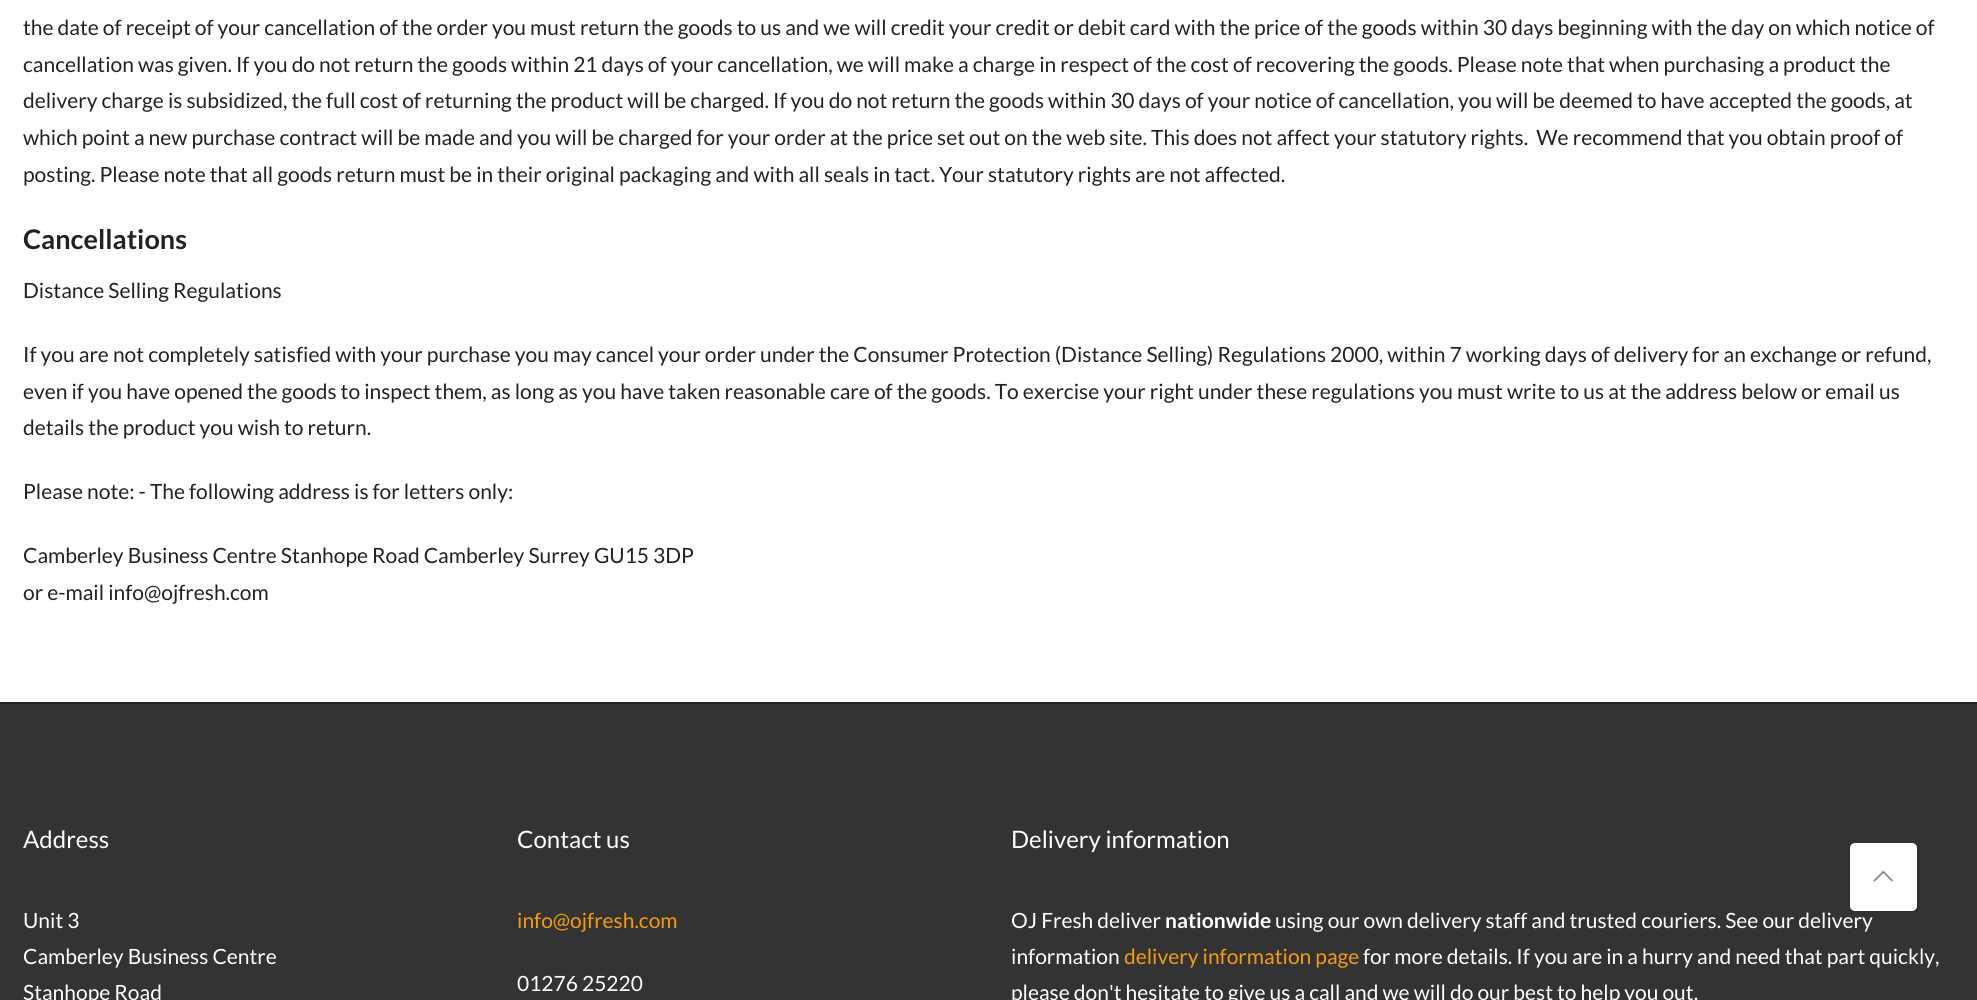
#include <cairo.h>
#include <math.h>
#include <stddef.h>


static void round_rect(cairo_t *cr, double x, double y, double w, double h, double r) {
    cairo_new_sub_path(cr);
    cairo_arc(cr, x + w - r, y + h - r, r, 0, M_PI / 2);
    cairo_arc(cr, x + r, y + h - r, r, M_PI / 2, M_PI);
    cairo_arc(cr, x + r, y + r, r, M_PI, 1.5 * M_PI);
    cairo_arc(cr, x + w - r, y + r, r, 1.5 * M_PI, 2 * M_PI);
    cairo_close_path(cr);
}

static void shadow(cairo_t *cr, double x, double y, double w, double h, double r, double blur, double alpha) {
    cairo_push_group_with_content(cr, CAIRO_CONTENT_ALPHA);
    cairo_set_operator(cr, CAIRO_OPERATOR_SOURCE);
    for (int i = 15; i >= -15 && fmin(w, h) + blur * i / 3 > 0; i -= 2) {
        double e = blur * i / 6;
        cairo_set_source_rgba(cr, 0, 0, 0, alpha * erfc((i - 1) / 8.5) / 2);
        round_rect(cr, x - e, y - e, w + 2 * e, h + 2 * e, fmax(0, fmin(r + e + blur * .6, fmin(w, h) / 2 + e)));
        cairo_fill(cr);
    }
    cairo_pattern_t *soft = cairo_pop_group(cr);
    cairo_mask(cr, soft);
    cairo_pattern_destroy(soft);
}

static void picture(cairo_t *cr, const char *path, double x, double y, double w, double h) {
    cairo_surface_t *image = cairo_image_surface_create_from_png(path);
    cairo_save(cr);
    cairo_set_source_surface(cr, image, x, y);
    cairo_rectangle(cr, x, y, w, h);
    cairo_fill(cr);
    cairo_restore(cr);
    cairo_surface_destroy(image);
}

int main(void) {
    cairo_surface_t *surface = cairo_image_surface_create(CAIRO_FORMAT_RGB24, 1977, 1000);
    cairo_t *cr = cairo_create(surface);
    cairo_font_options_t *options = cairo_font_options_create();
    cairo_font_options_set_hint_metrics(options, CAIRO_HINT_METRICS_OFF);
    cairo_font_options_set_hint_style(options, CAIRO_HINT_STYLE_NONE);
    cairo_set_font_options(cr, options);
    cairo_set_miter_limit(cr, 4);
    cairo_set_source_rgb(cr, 1, 1, 1);
    cairo_paint(cr);
    cairo_select_font_face(cr, "Lato", CAIRO_FONT_SLANT_NORMAL, CAIRO_FONT_WEIGHT_NORMAL);
    cairo_set_font_size(cr, 21);
    cairo_set_source_rgb(cr, 0.133, 0.133, 0.133);
    cairo_move_to(cr, 23, 35);
    cairo_show_text(cr, "the date of receipt of your cancellation of the order you must return the goods to us and we will credit your credit or debit card with the price of the goods within 30 days beginning with the day on which notice of");
    cairo_move_to(cr, 23, 72);
    cairo_show_text(cr, "cancellation was given. If you do not return the goods within 21 days of your cancellation, we will make a charge in respect of the cost of recovering the goods. Please note that when purchasing a product the");
    cairo_move_to(cr, 23, 108);
    cairo_show_text(cr, "delivery charge is subsidized, the full cost of returning the product will be charged. If you do not return the goods within 30 days of your notice of cancellation, you will be deemed to have accepted the goods, at");
    cairo_move_to(cr, 23, 145);
    cairo_show_text(cr, "which point a new purchase contract will be made and you will be charged for your order at the price set out on the web site. This does not affect your statutory rights.  We recommend that you obtain proof of");
    cairo_move_to(cr, 23, 182);
    cairo_show_text(cr, "posting. Please note that all goods return must be in their original packaging and with all seals in tact. Your statutory rights are not affected.");
    cairo_select_font_face(cr, "Lato", CAIRO_FONT_SLANT_NORMAL, CAIRO_FONT_WEIGHT_BOLD);
    cairo_set_font_size(cr, 27);
    cairo_move_to(cr, 23, 249);
    cairo_show_text(cr, "Cancellations");
    cairo_select_font_face(cr, "Lato", CAIRO_FONT_SLANT_NORMAL, CAIRO_FONT_WEIGHT_NORMAL);
    cairo_set_font_size(cr, 21);
    cairo_move_to(cr, 23, 298);
    cairo_show_text(cr, "Distance Selling Regulations");
    cairo_move_to(cr, 23, 362);
    cairo_show_text(cr, "If you are not completely satisfied with your purchase you may cancel your order under the Consumer Protection (Distance Selling) Regulations 2000, within 7 working days of delivery for an exchange or refund,");
    cairo_move_to(cr, 23, 399);
    cairo_show_text(cr, "even if you have opened the goods to inspect them, as long as you have taken reasonable care of the goods. To exercise your right under these regulations you must write to us at the address below or email us");
    cairo_move_to(cr, 23, 435);
    cairo_show_text(cr, "details the product you wish to return.");
    cairo_move_to(cr, 23, 499);
    cairo_show_text(cr, "Please note: - The following address is for letters only:");
    cairo_move_to(cr, 23, 563);
    cairo_show_text(cr, "Camberley Business Centre Stanhope Road Camberley Surrey GU15 3DP");
    cairo_move_to(cr, 23, 600);
    cairo_show_text(cr, "or e-mail info@ojfresh.com");
    cairo_set_source_rgb(cr, 0.2, 0.2, 0.2);
    cairo_rectangle(cr, 0, 704, 1977, 296);
    cairo_fill(cr);
    cairo_set_source_rgb(cr, 0.133, 0.133, 0.133);
    cairo_rectangle(cr, 0, 702, 1977, 2);
    cairo_fill(cr);
    cairo_set_font_size(cr, 24);
    cairo_set_source_rgb(cr, 1, 1, 1);
    cairo_move_to(cr, 23, 848);
    cairo_show_text(cr, "Address");
    cairo_set_font_size(cr, 21);
    cairo_move_to(cr, 23, 928);
    cairo_show_text(cr, "Unit 3");
    cairo_move_to(cr, 23, 964);
    cairo_show_text(cr, "Camberley Business Centre");
    cairo_move_to(cr, 23, 1000);
    cairo_show_text(cr, "Stanhope Road");
    cairo_set_font_size(cr, 24);
    cairo_move_to(cr, 517, 848);
    cairo_show_text(cr, "Contact us");
    cairo_set_font_size(cr, 21);
    cairo_set_source_rgb(cr, 0.953, 0.612, 0.071);
    cairo_move_to(cr, 517, 928);
    cairo_show_text(cr, "info@ojfresh.com");
    cairo_set_source_rgb(cr, 1, 1, 1);
    cairo_move_to(cr, 517, 991);
    cairo_show_text(cr, "01276 25220");
    cairo_set_font_size(cr, 24);
    cairo_move_to(cr, 1011, 848);
    cairo_show_text(cr, "Delivery information");
    cairo_set_font_size(cr, 21);
    cairo_move_to(cr, 1011, 928);
    cairo_show_text(cr, "OJ Fresh deliver");
    cairo_select_font_face(cr, "Lato", CAIRO_FONT_SLANT_NORMAL, CAIRO_FONT_WEIGHT_BOLD);
    cairo_move_to(cr, 1165, 928);
    cairo_show_text(cr, "nationwide");
    cairo_select_font_face(cr, "Lato", CAIRO_FONT_SLANT_NORMAL, CAIRO_FONT_WEIGHT_NORMAL);
    cairo_move_to(cr, 1275, 928);
    cairo_show_text(cr, "using our own delivery staff and trusted couriers. See our delivery");
    cairo_move_to(cr, 1011, 964);
    cairo_show_text(cr, "information");
    cairo_set_source_rgb(cr, 0.953, 0.612, 0.071);
    cairo_move_to(cr, 1124, 964);
    cairo_show_text(cr, "delivery information page");
    cairo_set_source_rgb(cr, 1, 1, 1);
    cairo_move_to(cr, 1363, 964);
    cairo_show_text(cr, "for more details. If you are in a hurry and need that part quickly,");
    cairo_move_to(cr, 1011, 1000);
    cairo_show_text(cr, "please don't hesitate to give us a call and we will do our best to help you out.");
    cairo_set_source_rgb(cr, 0, 0, 0);
    shadow(cr, 1850, 843, 67, 68, 5, 2, 0.2);
    cairo_set_source_rgb(cr, 1, 1, 1);
    round_rect(cr, 1850, 843, 67, 68, 5);
    cairo_fill(cr);
    picture(cr, "img1.png", 1873, 870, 20, 12);
    cairo_surface_write_to_png(surface, "page.png");
    cairo_font_options_destroy(options);
    cairo_destroy(cr);
    cairo_surface_destroy(surface);
    return 0;
}
